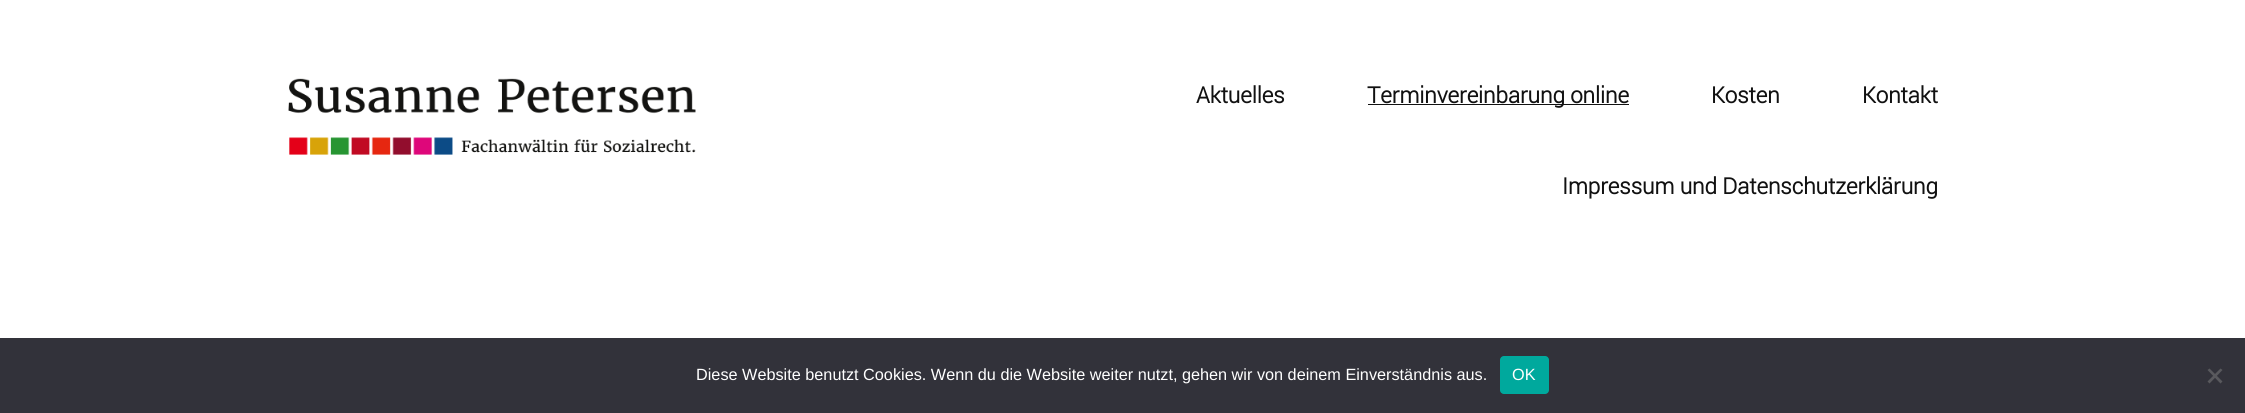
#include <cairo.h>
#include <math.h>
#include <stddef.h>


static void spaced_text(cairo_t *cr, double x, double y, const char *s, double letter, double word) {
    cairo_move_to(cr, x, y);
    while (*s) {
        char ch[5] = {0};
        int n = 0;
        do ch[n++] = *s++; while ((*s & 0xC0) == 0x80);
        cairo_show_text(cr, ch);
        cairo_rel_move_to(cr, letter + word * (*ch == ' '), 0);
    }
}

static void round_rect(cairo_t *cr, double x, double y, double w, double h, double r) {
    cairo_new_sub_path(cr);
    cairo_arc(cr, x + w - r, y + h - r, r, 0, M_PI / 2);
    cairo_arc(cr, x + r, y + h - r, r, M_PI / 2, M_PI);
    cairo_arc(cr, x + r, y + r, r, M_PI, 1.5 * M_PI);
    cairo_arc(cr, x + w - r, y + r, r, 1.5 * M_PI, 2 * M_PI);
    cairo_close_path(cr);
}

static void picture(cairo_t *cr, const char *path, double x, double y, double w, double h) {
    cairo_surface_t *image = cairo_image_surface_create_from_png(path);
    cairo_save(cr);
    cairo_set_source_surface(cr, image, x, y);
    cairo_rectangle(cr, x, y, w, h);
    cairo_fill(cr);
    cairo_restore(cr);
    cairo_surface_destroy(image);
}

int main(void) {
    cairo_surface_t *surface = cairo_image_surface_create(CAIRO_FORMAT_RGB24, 2245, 413);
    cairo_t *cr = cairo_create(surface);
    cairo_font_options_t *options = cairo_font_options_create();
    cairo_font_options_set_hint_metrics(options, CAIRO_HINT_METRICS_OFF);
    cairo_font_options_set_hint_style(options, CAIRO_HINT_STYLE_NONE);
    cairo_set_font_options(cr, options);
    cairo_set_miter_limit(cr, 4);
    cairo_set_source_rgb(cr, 1, 1, 1);
    cairo_paint(cr);
    picture(cr, "img1.png", 288, 78, 408, 77);
    cairo_select_font_face(cr, "Roboto", CAIRO_FONT_SLANT_NORMAL, CAIRO_FONT_WEIGHT_BOLD);
    cairo_set_font_size(cr, 22.5);
    cairo_set_source_rgb(cr, 0.067, 0.067, 0.067);
    spaced_text(cr, 1196, 103, "Aktuelles", -0.1, 0);
    cairo_rectangle(cr, 1368, 104, 261, 1);
    cairo_fill(cr);
    spaced_text(cr, 1367, 103, "Terminvereinbarung online", -0.1, 0);
    spaced_text(cr, 1711, 103, "Kosten", -0.1, 0);
    spaced_text(cr, 1862, 103, "Kontakt", -0.1, 0);
    spaced_text(cr, 1562, 194, "Impressum und Datenschutzerklärung", -0.1, 0);
    cairo_set_source_rgb(cr, 0.196, 0.196, 0.227);
    cairo_rectangle(cr, 0, 338, 2245, 75);
    cairo_fill(cr);
    cairo_select_font_face(cr, "Liberation Sans", CAIRO_FONT_SLANT_NORMAL, CAIRO_FONT_WEIGHT_NORMAL);
    cairo_set_font_size(cr, 16.25);
    cairo_set_source_rgb(cr, 1, 1, 1);
    cairo_move_to(cr, 696, 380);
    cairo_show_text(cr, "Diese Website benutzt Cookies. Wenn du die Website weiter nutzt, gehen wir von deinem Einverständnis aus.");
    cairo_set_source_rgb(cr, 0, 0.663, 0.616);
    round_rect(cr, 1500, 356, 49, 38, 4);
    cairo_fill(cr);
    cairo_set_source_rgb(cr, 1, 1, 1);
    cairo_move_to(cr, 1512, 380);
    cairo_show_text(cr, "OK");
    cairo_set_source_rgb(cr, 0.349, 0.349, 0.365);
    cairo_new_path(cr);
    cairo_move_to(cr, 2220.5, 368.5);
    cairo_line_to(cr, 2222.5, 370);
    cairo_line_to(cr, 2209.5, 383.5);
    cairo_line_to(cr, 2207.5, 381.5);
    cairo_close_path(cr);
    cairo_fill(cr);
    cairo_new_path(cr);
    cairo_move_to(cr, 2207.5, 370);
    cairo_line_to(cr, 2209.5, 368.5);
    cairo_line_to(cr, 2222.5, 381.5);
    cairo_line_to(cr, 2220.5, 383.5);
    cairo_close_path(cr);
    cairo_fill(cr);
    cairo_surface_write_to_png(surface, "page.png");
    cairo_font_options_destroy(options);
    cairo_destroy(cr);
    cairo_surface_destroy(surface);
    return 0;
}
